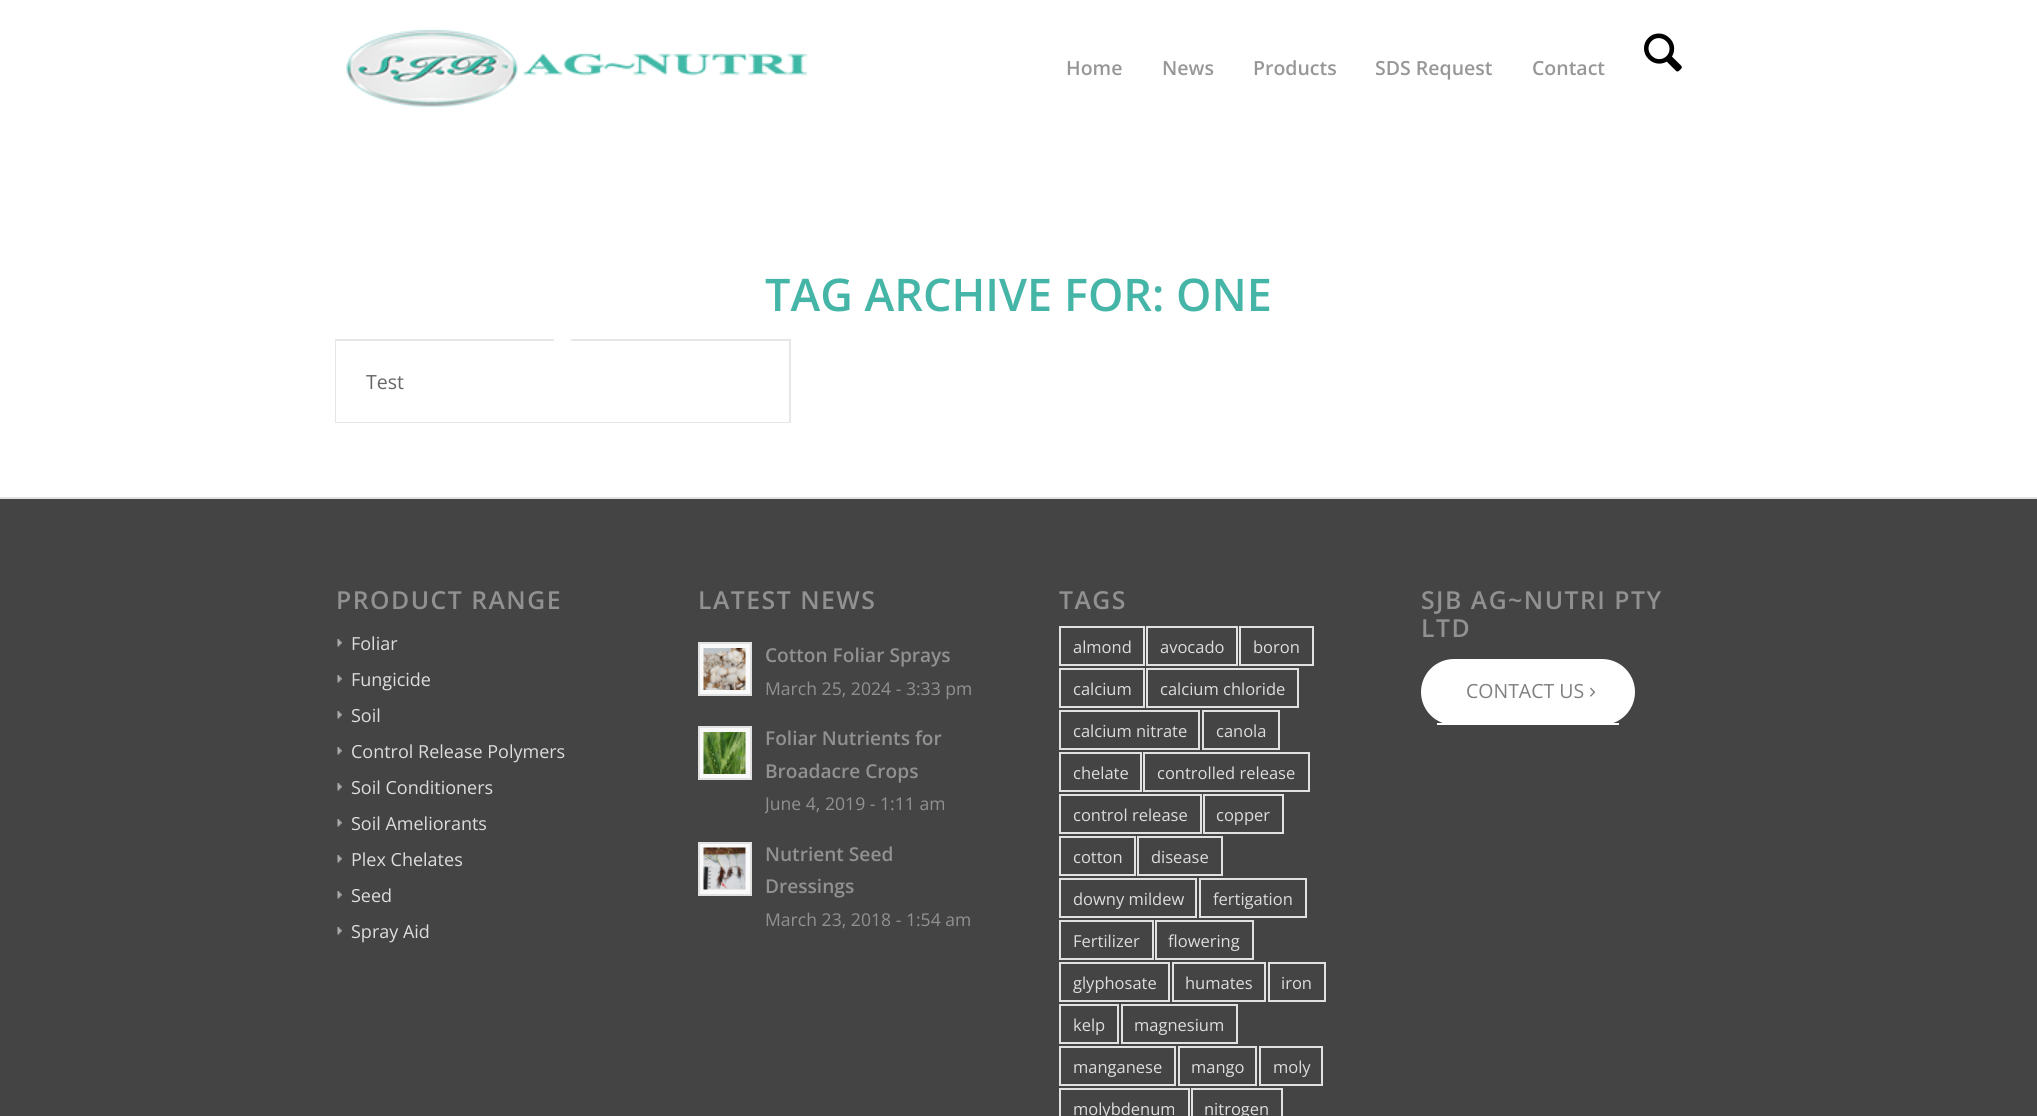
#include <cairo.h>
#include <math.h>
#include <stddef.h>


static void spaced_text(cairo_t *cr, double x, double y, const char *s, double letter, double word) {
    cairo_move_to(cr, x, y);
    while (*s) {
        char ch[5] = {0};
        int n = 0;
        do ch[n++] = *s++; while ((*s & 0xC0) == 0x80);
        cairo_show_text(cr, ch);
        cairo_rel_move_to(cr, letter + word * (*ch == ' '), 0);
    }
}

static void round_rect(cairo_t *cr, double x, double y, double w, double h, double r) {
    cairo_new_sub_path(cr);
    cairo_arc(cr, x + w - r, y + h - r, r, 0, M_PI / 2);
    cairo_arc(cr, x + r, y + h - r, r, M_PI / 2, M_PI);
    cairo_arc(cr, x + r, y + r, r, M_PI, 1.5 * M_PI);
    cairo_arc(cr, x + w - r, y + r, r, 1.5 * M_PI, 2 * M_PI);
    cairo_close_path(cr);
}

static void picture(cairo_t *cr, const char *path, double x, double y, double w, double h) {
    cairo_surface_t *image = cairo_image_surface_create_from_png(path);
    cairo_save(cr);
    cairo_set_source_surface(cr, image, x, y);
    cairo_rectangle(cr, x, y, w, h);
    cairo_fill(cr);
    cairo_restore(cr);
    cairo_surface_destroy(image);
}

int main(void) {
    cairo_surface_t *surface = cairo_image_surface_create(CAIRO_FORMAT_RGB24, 2037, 1116);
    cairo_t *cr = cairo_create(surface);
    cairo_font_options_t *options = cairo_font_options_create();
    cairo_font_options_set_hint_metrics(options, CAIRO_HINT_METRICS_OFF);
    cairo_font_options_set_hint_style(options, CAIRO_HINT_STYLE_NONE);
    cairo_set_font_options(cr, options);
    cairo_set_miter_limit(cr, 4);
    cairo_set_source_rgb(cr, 1, 1, 1);
    cairo_paint(cr);
    picture(cr, "img1.png", 346, 29, 462, 78);
    cairo_select_font_face(cr, "Open Sans SemiBold", CAIRO_FONT_SLANT_NORMAL, CAIRO_FONT_WEIGHT_NORMAL);
    cairo_set_font_size(cr, 19.5);
    cairo_set_source_rgb(cr, 0.592, 0.592, 0.592);
    cairo_move_to(cr, 1066, 75);
    cairo_show_text(cr, "Home");
    cairo_move_to(cr, 1162, 75);
    cairo_show_text(cr, "News");
    cairo_move_to(cr, 1253, 75);
    cairo_show_text(cr, "Products");
    cairo_move_to(cr, 1375, 75);
    cairo_show_text(cr, "SDS Request");
    cairo_move_to(cr, 1532, 75);
    cairo_show_text(cr, "Contact");
    picture(cr, "img2.png", 1644, 33, 38, 39);
    cairo_set_font_size(cr, 45);
    cairo_set_source_rgb(cr, 0.267, 0.71, 0.651);
    cairo_move_to(cr, 765, 311);
    cairo_show_text(cr, "TAG ARCHIVE FOR: ONE");
    cairo_rectangle(cr, 336, 340, 454, 82);
    cairo_set_source_rgb(cr, 0.902, 0.902, 0.902);
    cairo_stroke(cr);
    cairo_set_source_rgb(cr, 1, 1, 1);
    cairo_rectangle(cr, 336, 341, 453, 81);
    cairo_fill(cr);
    cairo_new_path(cr);
    cairo_move_to(cr, 562.5, 331.5);
    cairo_line_to(cr, 573, 342);
    cairo_line_to(cr, 562.5, 352.5);
    cairo_line_to(cr, 552, 342);
    cairo_close_path(cr);
    cairo_fill(cr);
    cairo_select_font_face(cr, "Open Sans", CAIRO_FONT_SLANT_NORMAL, CAIRO_FONT_WEIGHT_NORMAL);
    cairo_set_font_size(cr, 19.5);
    cairo_set_source_rgb(cr, 0.4, 0.4, 0.4);
    cairo_move_to(cr, 366, 389);
    cairo_show_text(cr, "Test");
    cairo_set_source_rgb(cr, 0.267, 0.267, 0.267);
    cairo_rectangle(cr, 0, 499, 2037, 617);
    cairo_fill(cr);
    cairo_set_source_rgb(cr, 0.882, 0.882, 0.882);
    cairo_rectangle(cr, 0, 497, 2037, 2);
    cairo_fill(cr);
    cairo_select_font_face(cr, "Open Sans SemiBold", CAIRO_FONT_SLANT_NORMAL, CAIRO_FONT_WEIGHT_NORMAL);
    cairo_set_font_size(cr, 24.75);
    cairo_set_source_rgb(cr, 0.569, 0.569, 0.569);
    spaced_text(cr, 336, 609, "PRODUCT RANGE", 1.5, 0);
    picture(cr, "img3.png", 337, 639, 5, 8);
    cairo_select_font_face(cr, "Open Sans", CAIRO_FONT_SLANT_NORMAL, CAIRO_FONT_WEIGHT_NORMAL);
    cairo_set_font_size(cr, 18);
    cairo_set_source_rgb(cr, 0.867, 0.867, 0.867);
    cairo_move_to(cr, 351, 650);
    cairo_show_text(cr, "Foliar");
    picture(cr, "img3.png", 337, 675, 5, 8);
    cairo_move_to(cr, 351, 686);
    cairo_show_text(cr, "Fungicide");
    picture(cr, "img3.png", 337, 711, 5, 8);
    cairo_move_to(cr, 351, 722);
    cairo_show_text(cr, "Soil");
    picture(cr, "img3.png", 337, 747, 5, 8);
    cairo_move_to(cr, 351, 758);
    cairo_show_text(cr, "Control Release Polymers");
    picture(cr, "img3.png", 337, 783, 5, 8);
    cairo_move_to(cr, 351, 794);
    cairo_show_text(cr, "Soil Conditioners");
    picture(cr, "img3.png", 337, 819, 5, 8);
    cairo_move_to(cr, 351, 830);
    cairo_show_text(cr, "Soil Ameliorants");
    picture(cr, "img3.png", 337, 855, 5, 8);
    cairo_move_to(cr, 351, 866);
    cairo_show_text(cr, "Plex Chelates");
    picture(cr, "img3.png", 337, 891, 5, 8);
    cairo_move_to(cr, 351, 902);
    cairo_show_text(cr, "Seed");
    picture(cr, "img3.png", 337, 927, 5, 8);
    cairo_move_to(cr, 351, 938);
    cairo_show_text(cr, "Spray Aid");
    cairo_select_font_face(cr, "Open Sans SemiBold", CAIRO_FONT_SLANT_NORMAL, CAIRO_FONT_WEIGHT_NORMAL);
    cairo_set_font_size(cr, 24.75);
    cairo_set_source_rgb(cr, 0.569, 0.569, 0.569);
    spaced_text(cr, 698, 609, "LATEST NEWS", 1.5, 0);
    cairo_set_source_rgb(cr, 0.973, 0.973, 0.973);
    cairo_rectangle(cr, 699, 643, 52, 52);
    cairo_fill_preserve(cr);
    cairo_set_source_rgb(cr, 0.882, 0.882, 0.882);
    cairo_stroke(cr);
    picture(cr, "img4.png", 703, 648, 43, 42);
    cairo_set_font_size(cr, 19.1);
    cairo_set_source_rgb(cr, 0.569, 0.569, 0.569);
    cairo_move_to(cr, 765, 662);
    cairo_show_text(cr, "Cotton Foliar Sprays");
    cairo_select_font_face(cr, "Open Sans", CAIRO_FONT_SLANT_NORMAL, CAIRO_FONT_WEIGHT_NORMAL);
    cairo_set_font_size(cr, 17.6);
    cairo_move_to(cr, 765, 695);
    cairo_show_text(cr, "March 25, 2024 - 3:33 pm");
    cairo_set_source_rgb(cr, 0.973, 0.973, 0.973);
    cairo_rectangle(cr, 699, 727, 52, 52);
    cairo_fill_preserve(cr);
    cairo_set_source_rgb(cr, 0.882, 0.882, 0.882);
    cairo_stroke(cr);
    picture(cr, "img5.png", 703, 732, 43, 42);
    cairo_select_font_face(cr, "Open Sans SemiBold", CAIRO_FONT_SLANT_NORMAL, CAIRO_FONT_WEIGHT_NORMAL);
    cairo_set_font_size(cr, 19.1);
    cairo_set_source_rgb(cr, 0.569, 0.569, 0.569);
    cairo_move_to(cr, 765, 745);
    cairo_show_text(cr, "Foliar Nutrients for");
    cairo_move_to(cr, 765, 778);
    cairo_show_text(cr, "Broadacre Crops");
    cairo_save(cr);
    cairo_rectangle(cr, 765, 723, 213, 98);
    cairo_clip(cr);
    cairo_select_font_face(cr, "Open Sans", CAIRO_FONT_SLANT_NORMAL, CAIRO_FONT_WEIGHT_NORMAL);
    cairo_set_font_size(cr, 17.6);
    cairo_move_to(cr, 765, 810);
    cairo_show_text(cr, "June 4, 2019 - 1:11 am");
    cairo_restore(cr);
    cairo_set_source_rgb(cr, 0.973, 0.973, 0.973);
    cairo_rectangle(cr, 699, 843, 52, 52);
    cairo_fill_preserve(cr);
    cairo_set_source_rgb(cr, 0.882, 0.882, 0.882);
    cairo_stroke(cr);
    picture(cr, "img6.png", 703, 847, 43, 43);
    cairo_set_source_rgb(cr, 0.569, 0.569, 0.569);
    cairo_move_to(cr, 765, 861);
    cairo_show_text(cr, "Nutrient Seed");
    cairo_move_to(cr, 765, 893);
    cairo_show_text(cr, "Dressings");
    cairo_select_font_face(cr, "Open Sans", CAIRO_FONT_SLANT_NORMAL, CAIRO_FONT_WEIGHT_NORMAL);
    cairo_set_font_size(cr, 17.6);
    cairo_move_to(cr, 765, 926);
    cairo_show_text(cr, "March 23, 2018 - 1:54 am");
    cairo_select_font_face(cr, "Open Sans SemiBold", CAIRO_FONT_SLANT_NORMAL, CAIRO_FONT_WEIGHT_NORMAL);
    cairo_set_font_size(cr, 24.75);
    spaced_text(cr, 1059, 609, "TAGS", 1.5, 0);
    cairo_rectangle(cr, 1060, 627, 84, 38);
    cairo_set_source_rgb(cr, 0.882, 0.882, 0.882);
    cairo_stroke(cr);
    cairo_select_font_face(cr, "Open Sans", CAIRO_FONT_SLANT_NORMAL, CAIRO_FONT_WEIGHT_NORMAL);
    cairo_set_font_size(cr, 16.5);
    cairo_set_source_rgb(cr, 0.867, 0.867, 0.867);
    cairo_move_to(cr, 1073, 653);
    cairo_show_text(cr, "almond");
    cairo_rectangle(cr, 1147, 627, 90, 38);
    cairo_set_source_rgb(cr, 0.882, 0.882, 0.882);
    cairo_stroke(cr);
    cairo_set_source_rgb(cr, 0.867, 0.867, 0.867);
    cairo_move_to(cr, 1160, 653);
    cairo_show_text(cr, "avocado");
    cairo_rectangle(cr, 1240, 627, 73, 38);
    cairo_set_source_rgb(cr, 0.882, 0.882, 0.882);
    cairo_stroke(cr);
    cairo_set_source_rgb(cr, 0.867, 0.867, 0.867);
    cairo_move_to(cr, 1253, 653);
    cairo_show_text(cr, "boron");
    cairo_rectangle(cr, 1060, 669, 84, 38);
    cairo_set_source_rgb(cr, 0.882, 0.882, 0.882);
    cairo_stroke(cr);
    cairo_set_source_rgb(cr, 0.867, 0.867, 0.867);
    cairo_move_to(cr, 1073, 695);
    cairo_show_text(cr, "calcium");
    cairo_rectangle(cr, 1147, 669, 151, 38);
    cairo_set_source_rgb(cr, 0.882, 0.882, 0.882);
    cairo_stroke(cr);
    cairo_set_source_rgb(cr, 0.867, 0.867, 0.867);
    cairo_move_to(cr, 1160, 695);
    cairo_show_text(cr, "calcium chloride");
    cairo_rectangle(cr, 1060, 711, 139, 38);
    cairo_set_source_rgb(cr, 0.882, 0.882, 0.882);
    cairo_stroke(cr);
    cairo_set_source_rgb(cr, 0.867, 0.867, 0.867);
    cairo_move_to(cr, 1073, 737);
    cairo_show_text(cr, "calcium nitrate");
    cairo_rectangle(cr, 1203, 711, 76, 38);
    cairo_set_source_rgb(cr, 0.882, 0.882, 0.882);
    cairo_stroke(cr);
    cairo_set_source_rgb(cr, 0.867, 0.867, 0.867);
    cairo_move_to(cr, 1216, 737);
    cairo_show_text(cr, "canola");
    cairo_rectangle(cr, 1060, 753, 81, 38);
    cairo_set_source_rgb(cr, 0.882, 0.882, 0.882);
    cairo_stroke(cr);
    cairo_set_source_rgb(cr, 0.867, 0.867, 0.867);
    cairo_move_to(cr, 1073, 779);
    cairo_show_text(cr, "chelate");
    cairo_rectangle(cr, 1144, 753, 165, 38);
    cairo_set_source_rgb(cr, 0.882, 0.882, 0.882);
    cairo_stroke(cr);
    cairo_set_source_rgb(cr, 0.867, 0.867, 0.867);
    cairo_move_to(cr, 1157, 779);
    cairo_show_text(cr, "controlled release");
    cairo_rectangle(cr, 1060, 795, 141, 38);
    cairo_set_source_rgb(cr, 0.882, 0.882, 0.882);
    cairo_stroke(cr);
    cairo_set_source_rgb(cr, 0.867, 0.867, 0.867);
    cairo_move_to(cr, 1073, 821);
    cairo_show_text(cr, "control release");
    cairo_rectangle(cr, 1204, 795, 79, 38);
    cairo_set_source_rgb(cr, 0.882, 0.882, 0.882);
    cairo_stroke(cr);
    cairo_set_source_rgb(cr, 0.867, 0.867, 0.867);
    cairo_move_to(cr, 1216, 821);
    cairo_show_text(cr, "copper");
    cairo_rectangle(cr, 1060, 837, 75, 38);
    cairo_set_source_rgb(cr, 0.882, 0.882, 0.882);
    cairo_stroke(cr);
    cairo_set_source_rgb(cr, 0.867, 0.867, 0.867);
    cairo_move_to(cr, 1073, 863);
    cairo_show_text(cr, "cotton");
    cairo_rectangle(cr, 1138, 837, 84, 38);
    cairo_set_source_rgb(cr, 0.882, 0.882, 0.882);
    cairo_stroke(cr);
    cairo_set_source_rgb(cr, 0.867, 0.867, 0.867);
    cairo_move_to(cr, 1151, 863);
    cairo_show_text(cr, "disease");
    cairo_rectangle(cr, 1060, 879, 136, 38);
    cairo_set_source_rgb(cr, 0.882, 0.882, 0.882);
    cairo_stroke(cr);
    cairo_set_source_rgb(cr, 0.867, 0.867, 0.867);
    cairo_move_to(cr, 1073, 905);
    cairo_show_text(cr, "downy mildew");
    cairo_rectangle(cr, 1200, 879, 106, 38);
    cairo_set_source_rgb(cr, 0.882, 0.882, 0.882);
    cairo_stroke(cr);
    cairo_set_source_rgb(cr, 0.867, 0.867, 0.867);
    cairo_move_to(cr, 1213, 905);
    cairo_show_text(cr, "fertigation");
    cairo_rectangle(cr, 1060, 921, 93, 38);
    cairo_set_source_rgb(cr, 0.882, 0.882, 0.882);
    cairo_stroke(cr);
    cairo_set_source_rgb(cr, 0.867, 0.867, 0.867);
    cairo_move_to(cr, 1073, 947);
    cairo_show_text(cr, "Fertilizer");
    cairo_rectangle(cr, 1156, 921, 97, 38);
    cairo_set_source_rgb(cr, 0.882, 0.882, 0.882);
    cairo_stroke(cr);
    cairo_set_source_rgb(cr, 0.867, 0.867, 0.867);
    cairo_move_to(cr, 1168, 947);
    cairo_show_text(cr, "flowering");
    cairo_rectangle(cr, 1060, 963, 109, 38);
    cairo_set_source_rgb(cr, 0.882, 0.882, 0.882);
    cairo_stroke(cr);
    cairo_set_source_rgb(cr, 0.867, 0.867, 0.867);
    cairo_move_to(cr, 1073, 989);
    cairo_show_text(cr, "glyphosate");
    cairo_rectangle(cr, 1173, 963, 92, 38);
    cairo_set_source_rgb(cr, 0.882, 0.882, 0.882);
    cairo_stroke(cr);
    cairo_set_source_rgb(cr, 0.867, 0.867, 0.867);
    cairo_move_to(cr, 1185, 989);
    cairo_show_text(cr, "humates");
    cairo_rectangle(cr, 1269, 963, 56, 38);
    cairo_set_source_rgb(cr, 0.882, 0.882, 0.882);
    cairo_stroke(cr);
    cairo_set_source_rgb(cr, 0.867, 0.867, 0.867);
    cairo_move_to(cr, 1281, 989);
    cairo_show_text(cr, "iron");
    cairo_rectangle(cr, 1060, 1005, 58, 38);
    cairo_set_source_rgb(cr, 0.882, 0.882, 0.882);
    cairo_stroke(cr);
    cairo_set_source_rgb(cr, 0.867, 0.867, 0.867);
    cairo_move_to(cr, 1073, 1031);
    cairo_show_text(cr, "kelp");
    cairo_rectangle(cr, 1122, 1005, 115, 38);
    cairo_set_source_rgb(cr, 0.882, 0.882, 0.882);
    cairo_stroke(cr);
    cairo_set_source_rgb(cr, 0.867, 0.867, 0.867);
    cairo_move_to(cr, 1134, 1031);
    cairo_show_text(cr, "magnesium");
    cairo_rectangle(cr, 1060, 1047, 115, 38);
    cairo_set_source_rgb(cr, 0.882, 0.882, 0.882);
    cairo_stroke(cr);
    cairo_set_source_rgb(cr, 0.867, 0.867, 0.867);
    cairo_move_to(cr, 1073, 1073);
    cairo_show_text(cr, "manganese");
    cairo_rectangle(cr, 1179, 1047, 77, 38);
    cairo_set_source_rgb(cr, 0.882, 0.882, 0.882);
    cairo_stroke(cr);
    cairo_set_source_rgb(cr, 0.867, 0.867, 0.867);
    cairo_move_to(cr, 1191, 1073);
    cairo_show_text(cr, "mango");
    cairo_rectangle(cr, 1260, 1047, 62, 38);
    cairo_set_source_rgb(cr, 0.882, 0.882, 0.882);
    cairo_stroke(cr);
    cairo_set_source_rgb(cr, 0.867, 0.867, 0.867);
    cairo_move_to(cr, 1273, 1073);
    cairo_show_text(cr, "moly");
    cairo_rectangle(cr, 1060, 1089, 129, 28);
    cairo_set_source_rgb(cr, 0.882, 0.882, 0.882);
    cairo_stroke(cr);
    cairo_set_source_rgb(cr, 0.867, 0.867, 0.867);
    cairo_move_to(cr, 1073, 1115);
    cairo_show_text(cr, "molybdenum");
    cairo_rectangle(cr, 1192, 1089, 90, 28);
    cairo_set_source_rgb(cr, 0.882, 0.882, 0.882);
    cairo_stroke(cr);
    cairo_set_source_rgb(cr, 0.867, 0.867, 0.867);
    cairo_move_to(cr, 1204, 1115);
    cairo_show_text(cr, "nitrogen");
    cairo_select_font_face(cr, "Open Sans SemiBold", CAIRO_FONT_SLANT_NORMAL, CAIRO_FONT_WEIGHT_NORMAL);
    cairo_set_font_size(cr, 24.75);
    cairo_set_source_rgb(cr, 0.569, 0.569, 0.569);
    spaced_text(cr, 1421, 609, "SJB AG~NUTRI PTY", 1.5, 0);
    spaced_text(cr, 1421, 637, "LTD", 1.5, 0);
    cairo_set_source_rgb(cr, 1, 1, 1);
    round_rect(cr, 1421, 659, 214, 66, 33);
    cairo_fill(cr);
    cairo_rectangle(cr, 1437, 723, 182, 2);
    cairo_fill(cr);
    cairo_select_font_face(cr, "Open Sans", CAIRO_FONT_SLANT_NORMAL, CAIRO_FONT_WEIGHT_NORMAL);
    cairo_set_font_size(cr, 19.5);
    cairo_set_source_rgb(cr, 0.498, 0.498, 0.498);
    cairo_move_to(cr, 1466, 698);
    cairo_show_text(cr, "CONTACT US");
    picture(cr, "img7.png", 1590, 687, 6, 10);
    cairo_surface_write_to_png(surface, "page.png");
    cairo_font_options_destroy(options);
    cairo_destroy(cr);
    cairo_surface_destroy(surface);
    return 0;
}
